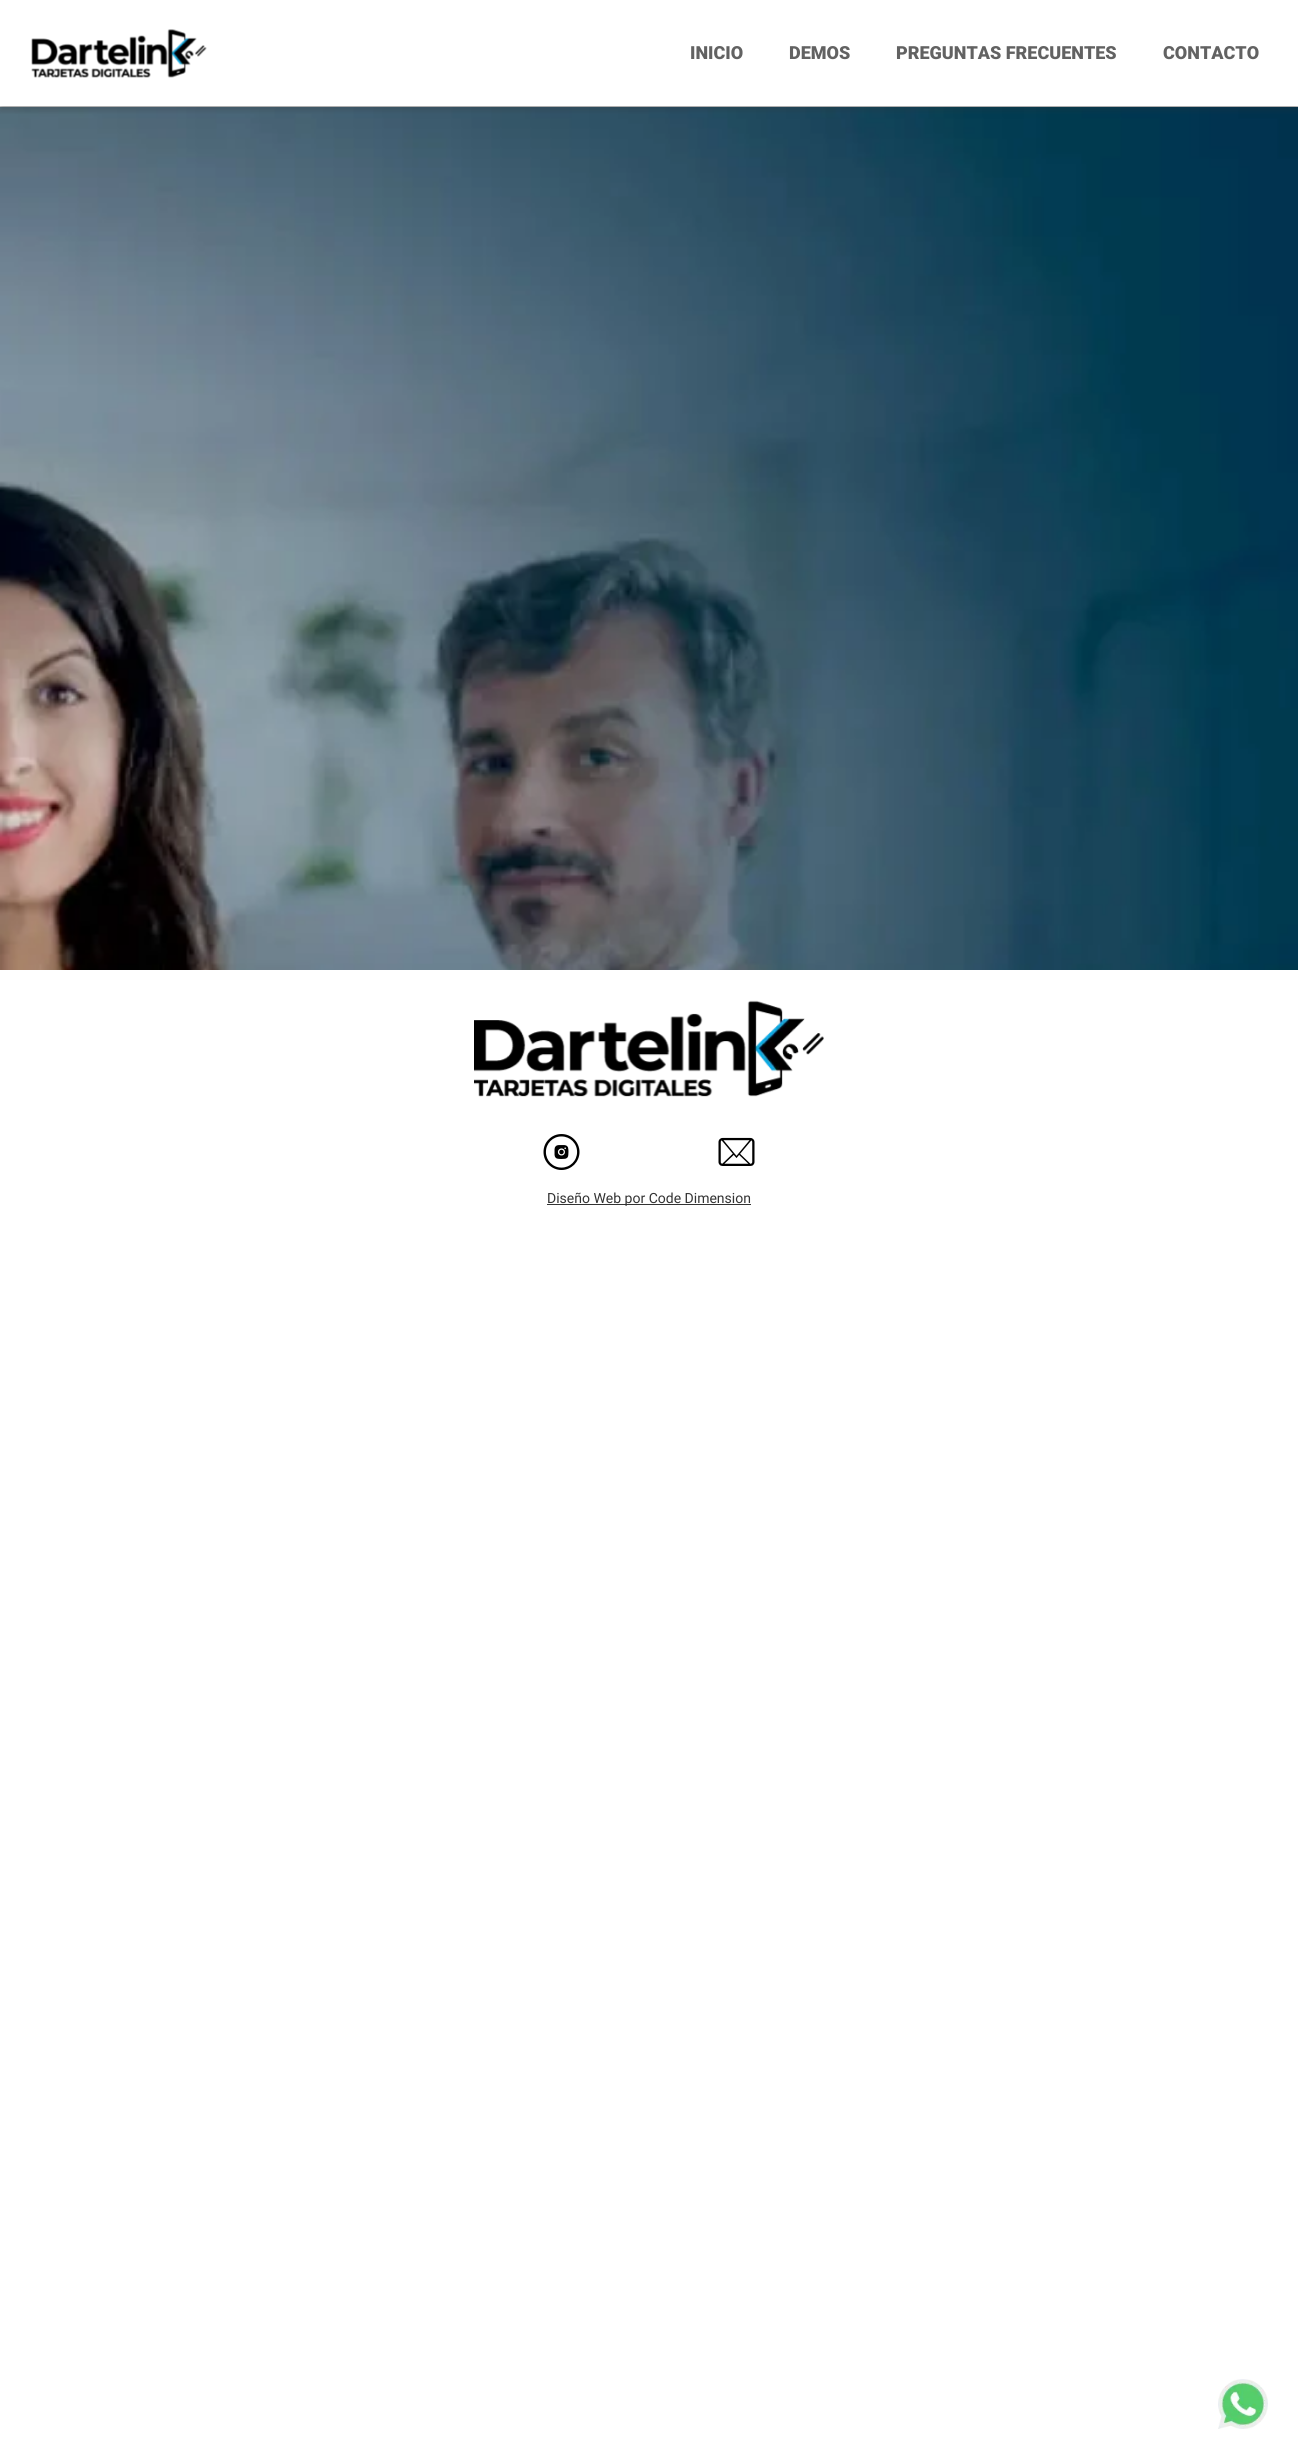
#include <cairo.h>
#include <math.h>
#include <stddef.h>


static void round_rect(cairo_t *cr, double x, double y, double w, double h, double r) {
    cairo_new_sub_path(cr);
    cairo_arc(cr, x + w - r, y + h - r, r, 0, M_PI / 2);
    cairo_arc(cr, x + r, y + h - r, r, M_PI / 2, M_PI);
    cairo_arc(cr, x + r, y + r, r, M_PI, 1.5 * M_PI);
    cairo_arc(cr, x + w - r, y + r, r, 1.5 * M_PI, 2 * M_PI);
    cairo_close_path(cr);
}

static void shadow(cairo_t *cr, double x, double y, double w, double h, double r, double blur, double alpha) {
    cairo_push_group_with_content(cr, CAIRO_CONTENT_ALPHA);
    cairo_set_operator(cr, CAIRO_OPERATOR_SOURCE);
    for (int i = 15; i >= -15 && fmin(w, h) + blur * i / 3 > 0; i -= 2) {
        double e = blur * i / 6;
        cairo_set_source_rgba(cr, 0, 0, 0, alpha * erfc((i - 1) / 8.5) / 2);
        round_rect(cr, x - e, y - e, w + 2 * e, h + 2 * e, fmax(0, fmin(r + e + blur * .6, fmin(w, h) / 2 + e)));
        cairo_fill(cr);
    }
    cairo_pattern_t *soft = cairo_pop_group(cr);
    cairo_mask(cr, soft);
    cairo_pattern_destroy(soft);
}

static void picture(cairo_t *cr, const char *path, double x, double y, double w, double h) {
    cairo_surface_t *image = cairo_image_surface_create_from_png(path);
    cairo_save(cr);
    cairo_set_source_surface(cr, image, x, y);
    cairo_rectangle(cr, x, y, w, h);
    cairo_fill(cr);
    cairo_restore(cr);
    cairo_surface_destroy(image);
}

int main(void) {
    cairo_surface_t *surface = cairo_image_surface_create(CAIRO_FORMAT_RGB24, 1298, 2459);
    cairo_t *cr = cairo_create(surface);
    cairo_font_options_t *options = cairo_font_options_create();
    cairo_font_options_set_hint_metrics(options, CAIRO_HINT_METRICS_OFF);
    cairo_font_options_set_hint_style(options, CAIRO_HINT_STYLE_NONE);
    cairo_set_font_options(cr, options);
    cairo_set_miter_limit(cr, 4);
    cairo_set_source_rgb(cr, 1, 1, 1);
    cairo_paint(cr);
    cairo_set_source_rgb(cr, 0.8, 0.8, 0.8);
    cairo_rectangle(cr, 0, 106, 1298, 1);
    cairo_fill(cr);
    picture(cr, "img2.png", 0, 107, 1298, 863);
    cairo_save(cr);
    cairo_rectangle(cr, 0, 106, 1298, 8);
    cairo_clip(cr);
    cairo_set_source_rgb(cr, 0.196, 0.196, 0.196);
    shadow(cr, 0, 5, 1298, 106, 0, 2.5, 0.2);
    cairo_restore(cr);
    picture(cr, "img1.png", 31, 29, 176, 49);
    cairo_select_font_face(cr, "Roboto Black", CAIRO_FONT_SLANT_NORMAL, CAIRO_FONT_WEIGHT_NORMAL);
    cairo_set_font_size(cr, 18);
    cairo_set_source_rgb(cr, 0.384, 0.384, 0.384);
    cairo_move_to(cr, 690, 59);
    cairo_show_text(cr, "INICIO");
    cairo_move_to(cr, 789, 59);
    cairo_show_text(cr, "DEMOS");
    cairo_move_to(cr, 896, 59);
    cairo_show_text(cr, "PREGUNTAS FRECUENTES");
    cairo_move_to(cr, 1163, 59);
    cairo_show_text(cr, "CONTACTO");
    picture(cr, "img3.png", 474, 1000, 350, 97);
    picture(cr, "img4.png", 543, 1134, 37, 36);
    picture(cr, "img5.png", 718, 1137, 37, 29);
    cairo_set_source_rgb(cr, 0.2, 0.2, 0.2);
    cairo_rectangle(cr, 547, 1204, 204, 1);
    cairo_fill(cr);
    cairo_select_font_face(cr, "Roboto", CAIRO_FONT_SLANT_NORMAL, CAIRO_FONT_WEIGHT_NORMAL);
    cairo_set_font_size(cr, 14);
    cairo_move_to(cr, 547, 1203);
    cairo_show_text(cr, "Diseño Web por Code Dimension");
    picture(cr, "img6.png", 1218, 2379, 50, 50);
    cairo_surface_write_to_png(surface, "page.png");
    cairo_font_options_destroy(options);
    cairo_destroy(cr);
    cairo_surface_destroy(surface);
    return 0;
}
